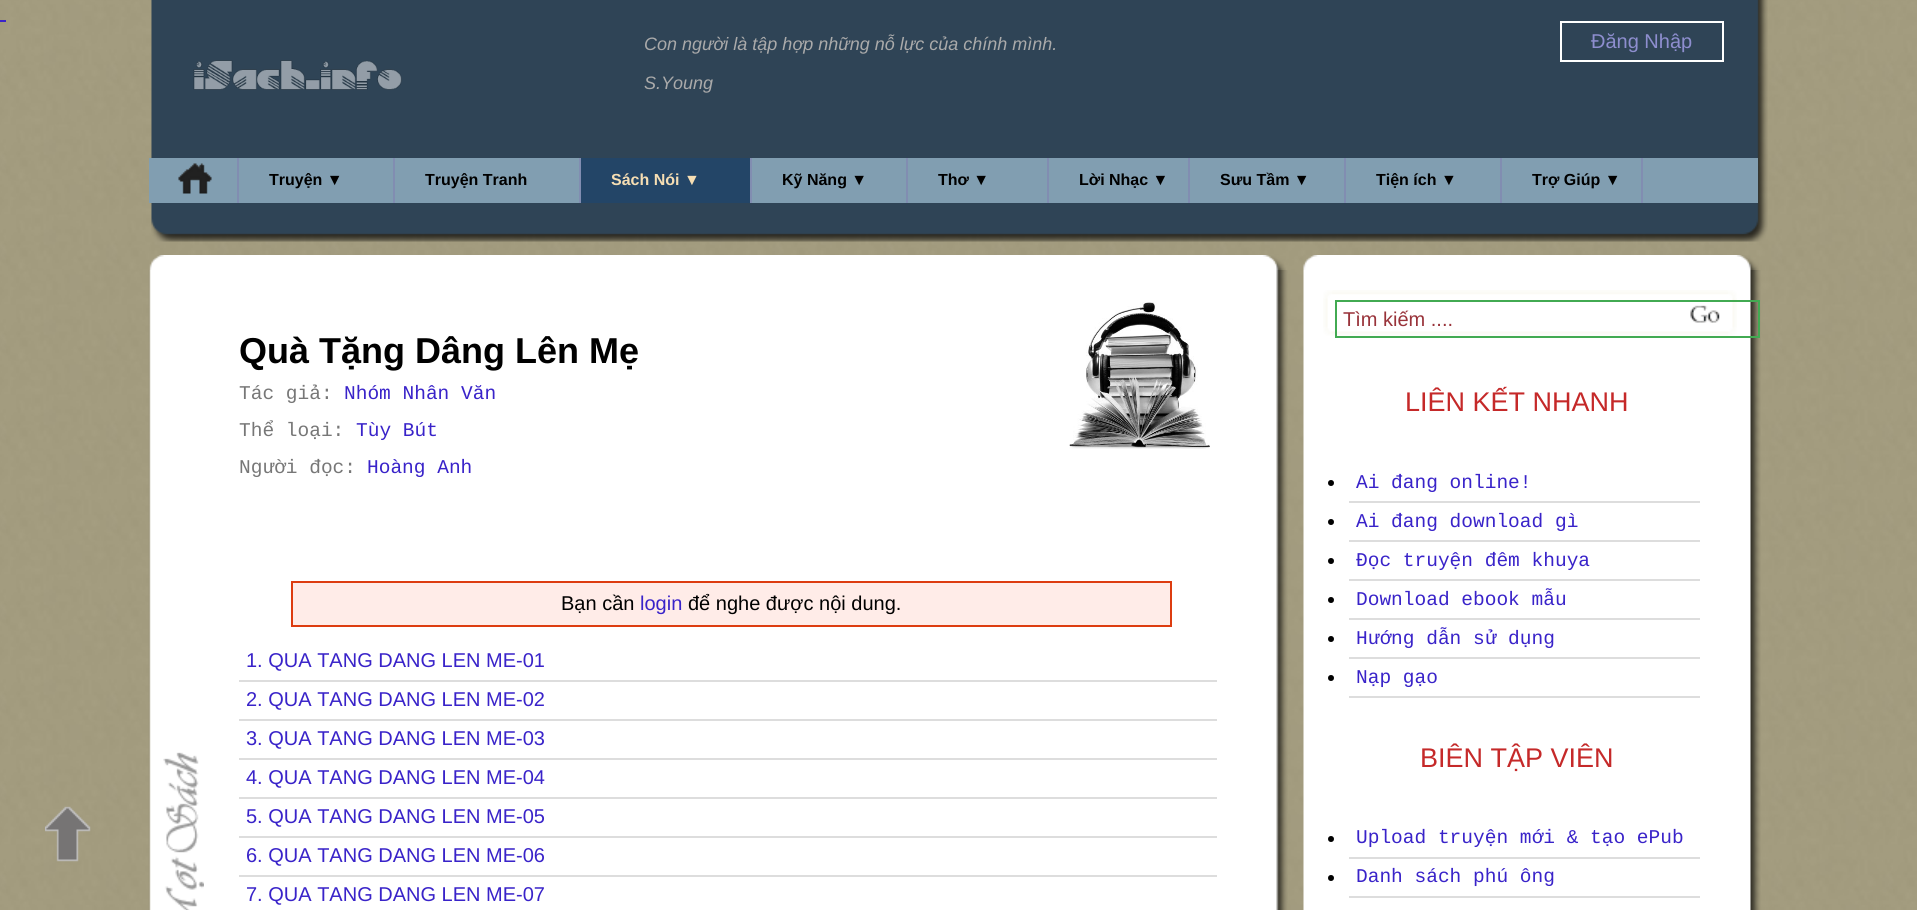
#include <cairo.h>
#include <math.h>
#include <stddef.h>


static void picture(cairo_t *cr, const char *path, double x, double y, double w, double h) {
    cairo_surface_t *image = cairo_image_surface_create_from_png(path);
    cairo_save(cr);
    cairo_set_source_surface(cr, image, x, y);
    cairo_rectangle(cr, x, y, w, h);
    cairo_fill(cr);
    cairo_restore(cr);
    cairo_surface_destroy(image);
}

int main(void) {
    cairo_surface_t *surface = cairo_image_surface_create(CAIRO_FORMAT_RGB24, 1917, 910);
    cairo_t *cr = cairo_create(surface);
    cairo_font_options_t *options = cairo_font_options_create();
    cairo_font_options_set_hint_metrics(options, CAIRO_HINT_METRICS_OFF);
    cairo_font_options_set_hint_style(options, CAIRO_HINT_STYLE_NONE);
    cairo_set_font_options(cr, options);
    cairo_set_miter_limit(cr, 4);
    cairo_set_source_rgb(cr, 1, 1, 1);
    cairo_paint(cr);
    picture(cr, "img1.png", 0, 0, 1917, 910);
    cairo_set_source_rgb(cr, 0.224, 0.137, 0.788);
    cairo_rectangle(cr, 0, 20, 6, 2);
    cairo_fill(cr);
    picture(cr, "img2.png", 45, 806, 46, 56);
    picture(cr, "img3.png", 151, 0, 1617, 210);
    picture(cr, "img4.png", 193, 60, 209, 30);
    cairo_select_font_face(cr, "Liberation Sans", CAIRO_FONT_SLANT_ITALIC, CAIRO_FONT_WEIGHT_NORMAL);
    cairo_set_font_size(cr, 18);
    cairo_set_source_rgb(cr, 0.667, 0.667, 0.667);
    cairo_move_to(cr, 644, 50);
    cairo_show_text(cr, "Con người là tập hợp những nỗ lực của chính mình.");
    cairo_move_to(cr, 644, 89);
    cairo_show_text(cr, "S.Young");
    cairo_select_font_face(cr, "Liberation Sans", CAIRO_FONT_SLANT_NORMAL, CAIRO_FONT_WEIGHT_NORMAL);
    cairo_set_font_size(cr, 20);
    cairo_set_source_rgb(cr, 0.557, 0.557, 0.812);
    cairo_move_to(cr, 1591, 48);
    cairo_show_text(cr, "Đăng Nhập");
    cairo_set_source_rgb(cr, 1, 1, 1);
    cairo_rectangle(cr, 1560, 21, 164, 2);
    cairo_fill(cr);
    cairo_rectangle(cr, 1560, 60, 132, 2);
    cairo_fill(cr);
    cairo_rectangle(cr, 1560, 21, 2, 41);
    cairo_fill(cr);
    cairo_rectangle(cr, 1722, 21, 2, 41);
    cairo_fill(cr);
    cairo_rectangle(cr, 1692, 60, 32, 2);
    cairo_fill(cr);
    cairo_set_source_rgb(cr, 0.506, 0.62, 0.694);
    cairo_rectangle(cr, 149, 158, 1609, 45);
    cairo_fill(cr);
    cairo_set_source_rgb(cr, 0.506, 0.553, 0.694);
    cairo_rectangle(cr, 237, 158, 2, 45);
    cairo_fill(cr);
    picture(cr, "img5.png", 178, 163, 34, 31);
    cairo_rectangle(cr, 393, 158, 2, 45);
    cairo_fill(cr);
    cairo_select_font_face(cr, "Liberation Sans", CAIRO_FONT_SLANT_NORMAL, CAIRO_FONT_WEIGHT_BOLD);
    cairo_set_font_size(cr, 16);
    cairo_set_source_rgb(cr, 0, 0, 0);
    cairo_move_to(cr, 269, 185);
    cairo_show_text(cr, "Truyện ▼");
    cairo_set_source_rgb(cr, 0.506, 0.553, 0.694);
    cairo_rectangle(cr, 579, 158, 2, 45);
    cairo_fill(cr);
    cairo_set_source_rgb(cr, 0, 0, 0);
    cairo_move_to(cr, 425, 185);
    cairo_show_text(cr, "Truyện Tranh");
    cairo_set_source_rgb(cr, 0.137, 0.271, 0.404);
    cairo_rectangle(cr, 581, 158, 169, 45);
    cairo_fill(cr);
    cairo_set_source_rgb(cr, 0.506, 0.553, 0.694);
    cairo_rectangle(cr, 750, 158, 2, 45);
    cairo_fill(cr);
    cairo_set_source_rgb(cr, 0.961, 0.871, 0.702);
    cairo_move_to(cr, 611, 185);
    cairo_show_text(cr, "Sách Nói ▼");
    cairo_set_source_rgb(cr, 0.506, 0.553, 0.694);
    cairo_rectangle(cr, 906, 158, 2, 45);
    cairo_fill(cr);
    cairo_set_source_rgb(cr, 0, 0, 0);
    cairo_move_to(cr, 782, 185);
    cairo_show_text(cr, "Kỹ Năng ▼");
    cairo_set_source_rgb(cr, 0.506, 0.553, 0.694);
    cairo_rectangle(cr, 1047, 158, 2, 45);
    cairo_fill(cr);
    cairo_set_source_rgb(cr, 0, 0, 0);
    cairo_move_to(cr, 938, 185);
    cairo_show_text(cr, "Thơ ▼");
    cairo_set_source_rgb(cr, 0.506, 0.553, 0.694);
    cairo_rectangle(cr, 1188, 158, 2, 45);
    cairo_fill(cr);
    cairo_set_source_rgb(cr, 0, 0, 0);
    cairo_move_to(cr, 1079, 185);
    cairo_show_text(cr, "Lời Nhạc ▼");
    cairo_set_source_rgb(cr, 0.506, 0.553, 0.694);
    cairo_rectangle(cr, 1344, 158, 2, 45);
    cairo_fill(cr);
    cairo_set_source_rgb(cr, 0, 0, 0);
    cairo_move_to(cr, 1220, 185);
    cairo_show_text(cr, "Sưu Tầm ▼");
    cairo_set_source_rgb(cr, 0.506, 0.553, 0.694);
    cairo_rectangle(cr, 1500, 158, 2, 45);
    cairo_fill(cr);
    cairo_set_source_rgb(cr, 0, 0, 0);
    cairo_move_to(cr, 1376, 185);
    cairo_show_text(cr, "Tiện ích ▼");
    cairo_set_source_rgb(cr, 0.506, 0.553, 0.694);
    cairo_rectangle(cr, 1641, 158, 2, 45);
    cairo_fill(cr);
    cairo_set_source_rgb(cr, 0, 0, 0);
    cairo_move_to(cr, 1532, 185);
    cairo_show_text(cr, "Trợ Giúp ▼");
    picture(cr, "img6.png", 151, 210, 1617, 32);
    picture(cr, "img9.png", 148, 270, 1140, 640);
    picture(cr, "img7.png", 163, 752, 41, 158);
    picture(cr, "img8.png", 149, 255, 1137, 15);
    cairo_set_font_size(cr, 36);
    cairo_move_to(cr, 239, 363);
    cairo_show_text(cr, "Quà Tặng Dâng Lên Mẹ");
    picture(cr, "img10.png", 1069, 302, 141, 147);
    cairo_select_font_face(cr, "Liberation Mono", CAIRO_FONT_SLANT_NORMAL, CAIRO_FONT_WEIGHT_NORMAL);
    cairo_set_font_size(cr, 19.5);
    cairo_set_source_rgb(cr, 0.467, 0.467, 0.467);
    cairo_move_to(cr, 239, 399);
    cairo_show_text(cr, "Tác giả:");
    cairo_set_source_rgb(cr, 0.224, 0.137, 0.788);
    cairo_move_to(cr, 344, 399);
    cairo_show_text(cr, "Nhóm Nhân Văn");
    cairo_set_source_rgb(cr, 0.467, 0.467, 0.467);
    cairo_move_to(cr, 239, 436);
    cairo_show_text(cr, "Thể loại:");
    cairo_set_source_rgb(cr, 0.224, 0.137, 0.788);
    cairo_move_to(cr, 356, 436);
    cairo_show_text(cr, "Tùy Bút");
    cairo_set_source_rgb(cr, 0.467, 0.467, 0.467);
    cairo_move_to(cr, 239, 473);
    cairo_show_text(cr, "Người đọc:");
    cairo_set_source_rgb(cr, 0.224, 0.137, 0.788);
    cairo_move_to(cr, 367, 473);
    cairo_show_text(cr, "Hoàng Anh");
    cairo_set_source_rgb(cr, 1, 0.922, 0.91);
    cairo_rectangle(cr, 292, 582, 879, 44);
    cairo_fill_preserve(cr);
    cairo_set_source_rgb(cr, 0.867, 0.235, 0.063);
    cairo_stroke(cr);
    cairo_select_font_face(cr, "Liberation Sans", CAIRO_FONT_SLANT_NORMAL, CAIRO_FONT_WEIGHT_NORMAL);
    cairo_set_font_size(cr, 20);
    cairo_set_source_rgb(cr, 0, 0, 0);
    cairo_move_to(cr, 561, 610);
    cairo_show_text(cr, "Bạn cần");
    cairo_set_source_rgb(cr, 0.224, 0.137, 0.788);
    cairo_move_to(cr, 640, 610);
    cairo_show_text(cr, "login");
    cairo_set_source_rgb(cr, 0, 0, 0);
    cairo_move_to(cr, 688, 610);
    cairo_show_text(cr, "để nghe được nội dung.");
    cairo_set_source_rgb(cr, 0.867, 0.867, 0.867);
    cairo_rectangle(cr, 239, 680, 978, 2);
    cairo_fill(cr);
    cairo_set_source_rgb(cr, 0.224, 0.137, 0.788);
    cairo_move_to(cr, 246, 667);
    cairo_show_text(cr, "1. QUA TANG DANG LEN ME-01");
    cairo_set_source_rgb(cr, 0.867, 0.867, 0.867);
    cairo_rectangle(cr, 239, 719, 978, 2);
    cairo_fill(cr);
    cairo_set_source_rgb(cr, 0.224, 0.137, 0.788);
    cairo_move_to(cr, 246, 706);
    cairo_show_text(cr, "2. QUA TANG DANG LEN ME-02");
    cairo_set_source_rgb(cr, 0.867, 0.867, 0.867);
    cairo_rectangle(cr, 239, 758, 978, 2);
    cairo_fill(cr);
    cairo_set_source_rgb(cr, 0.224, 0.137, 0.788);
    cairo_move_to(cr, 246, 745);
    cairo_show_text(cr, "3. QUA TANG DANG LEN ME-03");
    cairo_set_source_rgb(cr, 0.867, 0.867, 0.867);
    cairo_rectangle(cr, 239, 797, 978, 2);
    cairo_fill(cr);
    cairo_set_source_rgb(cr, 0.224, 0.137, 0.788);
    cairo_move_to(cr, 246, 784);
    cairo_show_text(cr, "4. QUA TANG DANG LEN ME-04");
    cairo_set_source_rgb(cr, 0.867, 0.867, 0.867);
    cairo_rectangle(cr, 239, 836, 978, 2);
    cairo_fill(cr);
    cairo_set_source_rgb(cr, 0.224, 0.137, 0.788);
    cairo_move_to(cr, 246, 823);
    cairo_show_text(cr, "5. QUA TANG DANG LEN ME-05");
    cairo_set_source_rgb(cr, 0.867, 0.867, 0.867);
    cairo_rectangle(cr, 239, 875, 978, 2);
    cairo_fill(cr);
    cairo_set_source_rgb(cr, 0.224, 0.137, 0.788);
    cairo_move_to(cr, 246, 862);
    cairo_show_text(cr, "6. QUA TANG DANG LEN ME-06");
    cairo_move_to(cr, 246, 901);
    cairo_show_text(cr, "7. QUA TANG DANG LEN ME-07");
    picture(cr, "img11.png", 1303, 255, 456, 15);
    picture(cr, "img12.png", 1303, 270, 458, 640);
    picture(cr, "img13.png", 1323, 290, 414, 46);
    cairo_rectangle(cr, 1336, 301, 423, 36);
    cairo_set_source_rgb(cr, 0.259, 0.667, 0.322);
    cairo_stroke(cr);
    cairo_set_source_rgb(cr, 0.6, 0.2, 0.227);
    cairo_move_to(cr, 1343, 326);
    cairo_show_text(cr, "Tìm kiếm ....");
    cairo_set_font_size(cr, 27);
    cairo_set_source_rgb(cr, 0.773, 0.161, 0.161);
    cairo_move_to(cr, 1405, 411);
    cairo_show_text(cr, "LIÊN KẾT NHANH");
    cairo_set_source_rgb(cr, 0.867, 0.867, 0.867);
    cairo_rectangle(cr, 1349, 501, 351, 2);
    cairo_fill(cr);
    cairo_set_source_rgb(cr, 0, 0, 0);
    cairo_arc(cr, 1331, 483, 3, 0, 2 * M_PI);
    cairo_fill(cr);
    cairo_select_font_face(cr, "Liberation Mono", CAIRO_FONT_SLANT_NORMAL, CAIRO_FONT_WEIGHT_NORMAL);
    cairo_set_font_size(cr, 19.5);
    cairo_set_source_rgb(cr, 0.224, 0.137, 0.788);
    cairo_move_to(cr, 1356, 488);
    cairo_show_text(cr, "Ai đang online!");
    cairo_set_source_rgb(cr, 0.867, 0.867, 0.867);
    cairo_rectangle(cr, 1349, 540, 351, 2);
    cairo_fill(cr);
    cairo_set_source_rgb(cr, 0, 0, 0);
    cairo_arc(cr, 1331, 522, 3, 0, 2 * M_PI);
    cairo_fill(cr);
    cairo_set_source_rgb(cr, 0.224, 0.137, 0.788);
    cairo_move_to(cr, 1356, 527);
    cairo_show_text(cr, "Ai đang download gì");
    cairo_set_source_rgb(cr, 0.867, 0.867, 0.867);
    cairo_rectangle(cr, 1349, 579, 351, 2);
    cairo_fill(cr);
    cairo_set_source_rgb(cr, 0, 0, 0);
    cairo_arc(cr, 1331, 561, 3, 0, 2 * M_PI);
    cairo_fill(cr);
    cairo_set_source_rgb(cr, 0.224, 0.137, 0.788);
    cairo_move_to(cr, 1356, 566);
    cairo_show_text(cr, "Đọc truyện đêm khuya");
    cairo_set_source_rgb(cr, 0.867, 0.867, 0.867);
    cairo_rectangle(cr, 1349, 618, 351, 2);
    cairo_fill(cr);
    cairo_set_source_rgb(cr, 0, 0, 0);
    cairo_arc(cr, 1331, 600, 3, 0, 2 * M_PI);
    cairo_fill(cr);
    cairo_set_source_rgb(cr, 0.224, 0.137, 0.788);
    cairo_move_to(cr, 1356, 605);
    cairo_show_text(cr, "Download ebook mẫu");
    cairo_set_source_rgb(cr, 0.867, 0.867, 0.867);
    cairo_rectangle(cr, 1349, 657, 351, 2);
    cairo_fill(cr);
    cairo_set_source_rgb(cr, 0, 0, 0);
    cairo_arc(cr, 1331, 639, 3, 0, 2 * M_PI);
    cairo_fill(cr);
    cairo_set_source_rgb(cr, 0.224, 0.137, 0.788);
    cairo_move_to(cr, 1356, 644);
    cairo_show_text(cr, "Hướng dẫn sử dụng");
    cairo_set_source_rgb(cr, 0.867, 0.867, 0.867);
    cairo_rectangle(cr, 1349, 696, 351, 2);
    cairo_fill(cr);
    cairo_set_source_rgb(cr, 0, 0, 0);
    cairo_arc(cr, 1331, 678, 3, 0, 2 * M_PI);
    cairo_fill(cr);
    cairo_set_source_rgb(cr, 0.224, 0.137, 0.788);
    cairo_move_to(cr, 1356, 683);
    cairo_show_text(cr, "Nạp gạo");
    cairo_select_font_face(cr, "Liberation Sans", CAIRO_FONT_SLANT_NORMAL, CAIRO_FONT_WEIGHT_NORMAL);
    cairo_set_font_size(cr, 27);
    cairo_set_source_rgb(cr, 0.773, 0.161, 0.161);
    cairo_move_to(cr, 1420, 767);
    cairo_show_text(cr, "BIÊN TẬP VIÊN");
    cairo_set_source_rgb(cr, 0.867, 0.867, 0.867);
    cairo_rectangle(cr, 1349, 857, 351, 2);
    cairo_fill(cr);
    cairo_set_source_rgb(cr, 0, 0, 0);
    cairo_arc(cr, 1331, 839, 3, 0, 2 * M_PI);
    cairo_fill(cr);
    cairo_select_font_face(cr, "Liberation Mono", CAIRO_FONT_SLANT_NORMAL, CAIRO_FONT_WEIGHT_NORMAL);
    cairo_set_font_size(cr, 19.5);
    cairo_set_source_rgb(cr, 0.224, 0.137, 0.788);
    cairo_move_to(cr, 1356, 843);
    cairo_show_text(cr, "Upload truyện mới & tạo ePub");
    cairo_set_source_rgb(cr, 0.867, 0.867, 0.867);
    cairo_rectangle(cr, 1349, 896, 351, 2);
    cairo_fill(cr);
    cairo_set_source_rgb(cr, 0, 0, 0);
    cairo_arc(cr, 1331, 878, 3, 0, 2 * M_PI);
    cairo_fill(cr);
    cairo_set_source_rgb(cr, 0.224, 0.137, 0.788);
    cairo_move_to(cr, 1356, 882);
    cairo_show_text(cr, "Danh sách phú ông");
    cairo_surface_write_to_png(surface, "page.png");
    cairo_font_options_destroy(options);
    cairo_destroy(cr);
    cairo_surface_destroy(surface);
    return 0;
}
